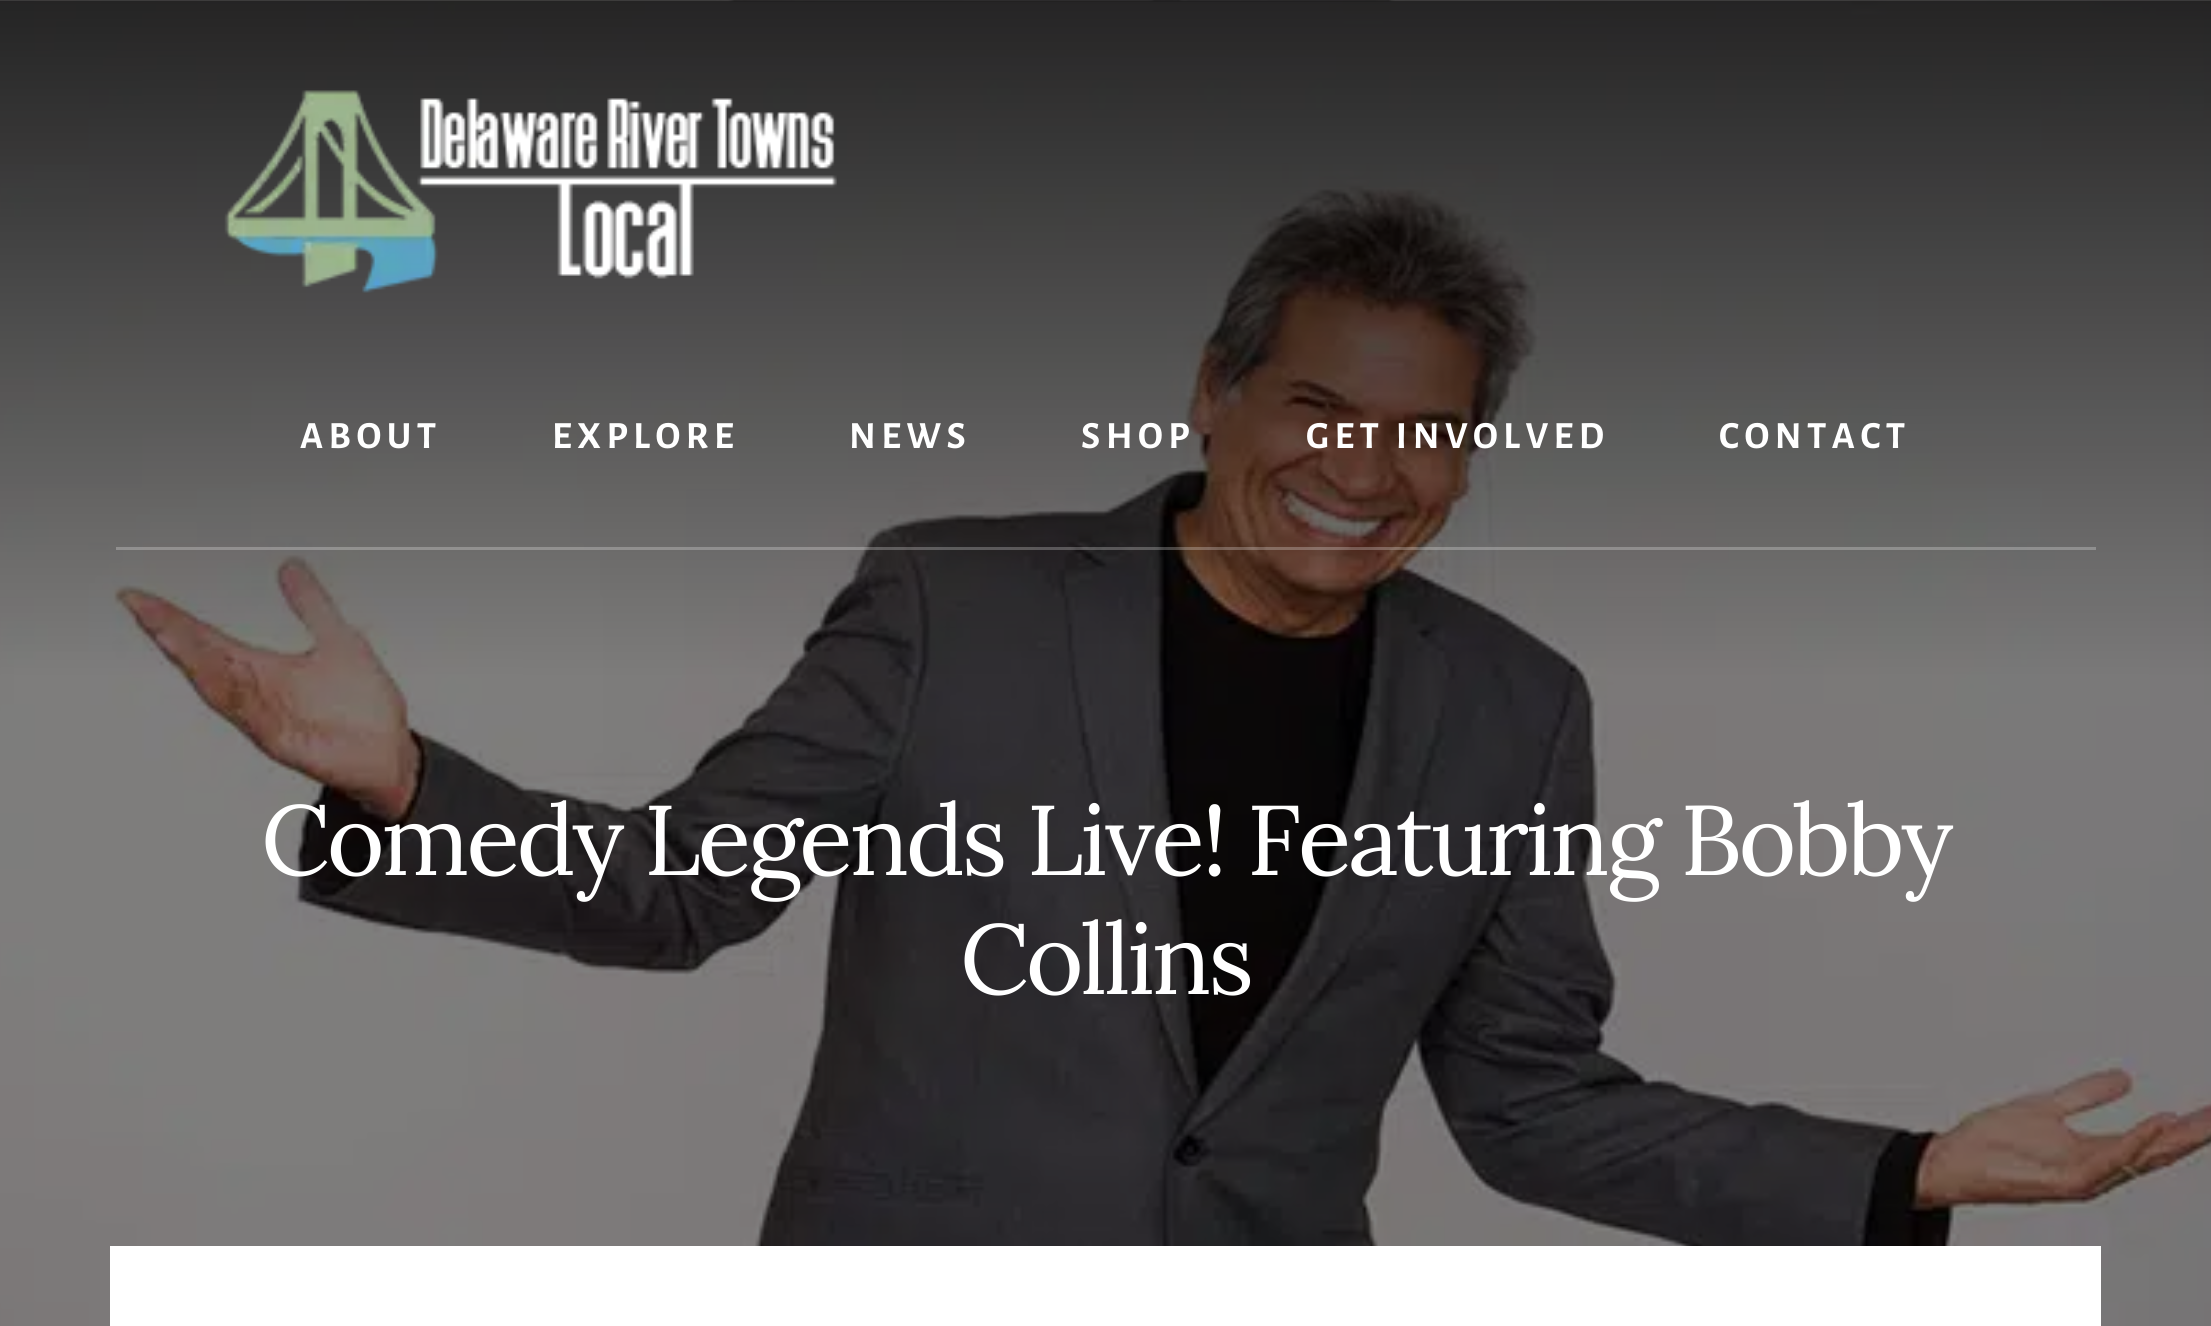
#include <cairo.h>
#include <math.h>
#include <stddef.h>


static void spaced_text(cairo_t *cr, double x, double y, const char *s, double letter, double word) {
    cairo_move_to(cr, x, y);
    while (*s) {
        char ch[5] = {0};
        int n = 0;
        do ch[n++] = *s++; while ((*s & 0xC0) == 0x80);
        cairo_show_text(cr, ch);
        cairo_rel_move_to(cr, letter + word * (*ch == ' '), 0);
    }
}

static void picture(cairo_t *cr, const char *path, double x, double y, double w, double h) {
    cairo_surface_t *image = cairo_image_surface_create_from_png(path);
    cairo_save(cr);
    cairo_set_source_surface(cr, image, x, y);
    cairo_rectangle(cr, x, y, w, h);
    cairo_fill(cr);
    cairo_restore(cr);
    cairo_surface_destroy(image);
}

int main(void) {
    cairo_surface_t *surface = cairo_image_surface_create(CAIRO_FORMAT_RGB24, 2211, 1326);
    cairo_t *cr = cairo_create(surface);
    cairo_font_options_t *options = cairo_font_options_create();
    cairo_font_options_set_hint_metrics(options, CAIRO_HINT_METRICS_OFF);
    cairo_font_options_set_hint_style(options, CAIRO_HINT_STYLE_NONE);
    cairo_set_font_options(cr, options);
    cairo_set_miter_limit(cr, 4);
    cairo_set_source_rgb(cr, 1, 1, 1);
    cairo_paint(cr);
    picture(cr, "img1.png", 0, 0, 2211, 1326);
    picture(cr, "img2.png", 224, 90, 613, 203);
    cairo_set_source_rgba(cr, 1, 1, 1, 0.25);
    cairo_rectangle(cr, 116, 547, 1980, 3);
    cairo_fill(cr);
    cairo_select_font_face(cr, "Alegreya Sans", CAIRO_FONT_SLANT_NORMAL, CAIRO_FONT_WEIGHT_BOLD);
    cairo_set_font_size(cr, 38.5);
    cairo_set_source_rgb(cr, 1, 1, 1);
    spaced_text(cr, 300, 448, "ABOUT", 5.5, 0);
    spaced_text(cr, 552, 448, "EXPLORE", 5.5, 0);
    spaced_text(cr, 849, 448, "NEWS", 5.5, 0);
    spaced_text(cr, 1081, 448, "SHOP", 5.5, 0);
    spaced_text(cr, 1306, 448, "GET INVOLVED", 5.5, 0);
    spaced_text(cr, 1719, 448, "CONTACT", 5.5, 0);
    cairo_select_font_face(cr, "Lora", CAIRO_FONT_SLANT_NORMAL, CAIRO_FONT_WEIGHT_NORMAL);
    cairo_set_font_size(cr, 99);
    spaced_text(cr, 261, 875, "Comedy Legends Live! Featuring Bobby", -3.45, 0);
    spaced_text(cr, 960, 994, "Collins", -3.45, 0);
    cairo_rectangle(cr, 110, 1246, 1991, 80);
    cairo_fill(cr);
    cairo_surface_write_to_png(surface, "page.png");
    cairo_font_options_destroy(options);
    cairo_destroy(cr);
    cairo_surface_destroy(surface);
    return 0;
}
